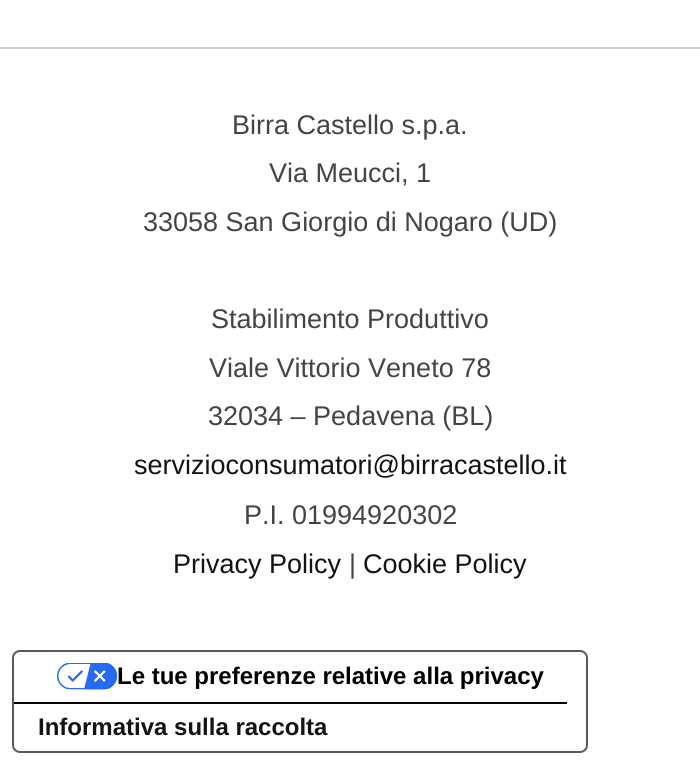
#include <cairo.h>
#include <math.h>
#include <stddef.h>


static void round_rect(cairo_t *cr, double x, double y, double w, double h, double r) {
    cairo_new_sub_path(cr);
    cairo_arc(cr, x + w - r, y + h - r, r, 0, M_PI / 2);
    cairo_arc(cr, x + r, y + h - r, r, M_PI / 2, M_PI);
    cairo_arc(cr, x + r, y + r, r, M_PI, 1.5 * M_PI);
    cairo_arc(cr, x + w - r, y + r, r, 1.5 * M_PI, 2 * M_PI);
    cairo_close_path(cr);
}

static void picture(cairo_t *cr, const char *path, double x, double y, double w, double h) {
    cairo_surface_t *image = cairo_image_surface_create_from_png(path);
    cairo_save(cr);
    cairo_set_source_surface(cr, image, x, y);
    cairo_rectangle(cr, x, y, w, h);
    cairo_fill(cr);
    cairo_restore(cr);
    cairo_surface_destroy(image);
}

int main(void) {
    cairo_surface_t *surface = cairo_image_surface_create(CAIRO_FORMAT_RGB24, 700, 764);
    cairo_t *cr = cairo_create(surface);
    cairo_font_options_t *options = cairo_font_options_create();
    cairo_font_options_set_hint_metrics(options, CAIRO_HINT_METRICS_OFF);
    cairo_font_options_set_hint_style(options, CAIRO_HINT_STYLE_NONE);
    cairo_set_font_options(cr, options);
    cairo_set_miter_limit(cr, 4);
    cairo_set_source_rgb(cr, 1, 1, 1);
    cairo_paint(cr);
    cairo_set_source_rgb(cr, 0.8, 0.8, 0.8);
    cairo_rectangle(cr, 0, 47, 700, 2);
    cairo_fill(cr);
    cairo_select_font_face(cr, "Liberation Sans", CAIRO_FONT_SLANT_NORMAL, CAIRO_FONT_WEIGHT_NORMAL);
    cairo_set_font_size(cr, 27);
    cairo_set_source_rgb(cr, 0.267, 0.267, 0.267);
    cairo_move_to(cr, 232, 134);
    cairo_show_text(cr, "Birra Castello s.p.a.");
    cairo_move_to(cr, 269, 182);
    cairo_show_text(cr, "Via Meucci, 1");
    cairo_move_to(cr, 143, 231);
    cairo_show_text(cr, "33058 San Giorgio di Nogaro (UD)");
    cairo_move_to(cr, 211, 328);
    cairo_show_text(cr, "Stabilimento Produttivo");
    cairo_move_to(cr, 209, 377);
    cairo_show_text(cr, "Viale Vittorio Veneto 78");
    cairo_move_to(cr, 208, 425);
    cairo_show_text(cr, "32034 – Pedavena (BL)");
    cairo_set_source_rgb(cr, 0.075, 0.075, 0.075);
    cairo_move_to(cr, 134, 474);
    cairo_show_text(cr, "servizioconsumatori@birracastello.it");
    cairo_set_source_rgb(cr, 0.267, 0.267, 0.267);
    cairo_move_to(cr, 244, 524);
    cairo_show_text(cr, "P.I. 01994920302");
    cairo_set_source_rgb(cr, 0.075, 0.075, 0.075);
    cairo_move_to(cr, 173, 573);
    cairo_show_text(cr, "Privacy Policy");
    cairo_set_source_rgb(cr, 0.267, 0.267, 0.267);
    cairo_move_to(cr, 349, 573);
    cairo_show_text(cr, "|");
    cairo_set_source_rgb(cr, 0.075, 0.075, 0.075);
    cairo_move_to(cr, 363, 573);
    cairo_show_text(cr, "Cookie Policy");
    round_rect(cr, 13, 651, 574, 101, 7);
    cairo_set_source_rgb(cr, 0.349, 0.349, 0.349);
    cairo_stroke(cr);
    cairo_set_source_rgb(cr, 0, 0, 0);
    cairo_rectangle(cr, 14, 702, 553, 2);
    cairo_fill(cr);
    picture(cr, "img1.png", 57, 663, 60, 27);
    cairo_select_font_face(cr, "Liberation Sans", CAIRO_FONT_SLANT_NORMAL, CAIRO_FONT_WEIGHT_BOLD);
    cairo_set_font_size(cr, 24);
    cairo_move_to(cr, 117, 684);
    cairo_show_text(cr, "Le tue preferenze relative alla privacy");
    cairo_set_source_rgb(cr, 0.075, 0.075, 0.075);
    cairo_move_to(cr, 38, 735);
    cairo_show_text(cr, "Informativa sulla raccolta");
    cairo_surface_write_to_png(surface, "page.png");
    cairo_font_options_destroy(options);
    cairo_destroy(cr);
    cairo_surface_destroy(surface);
    return 0;
}
